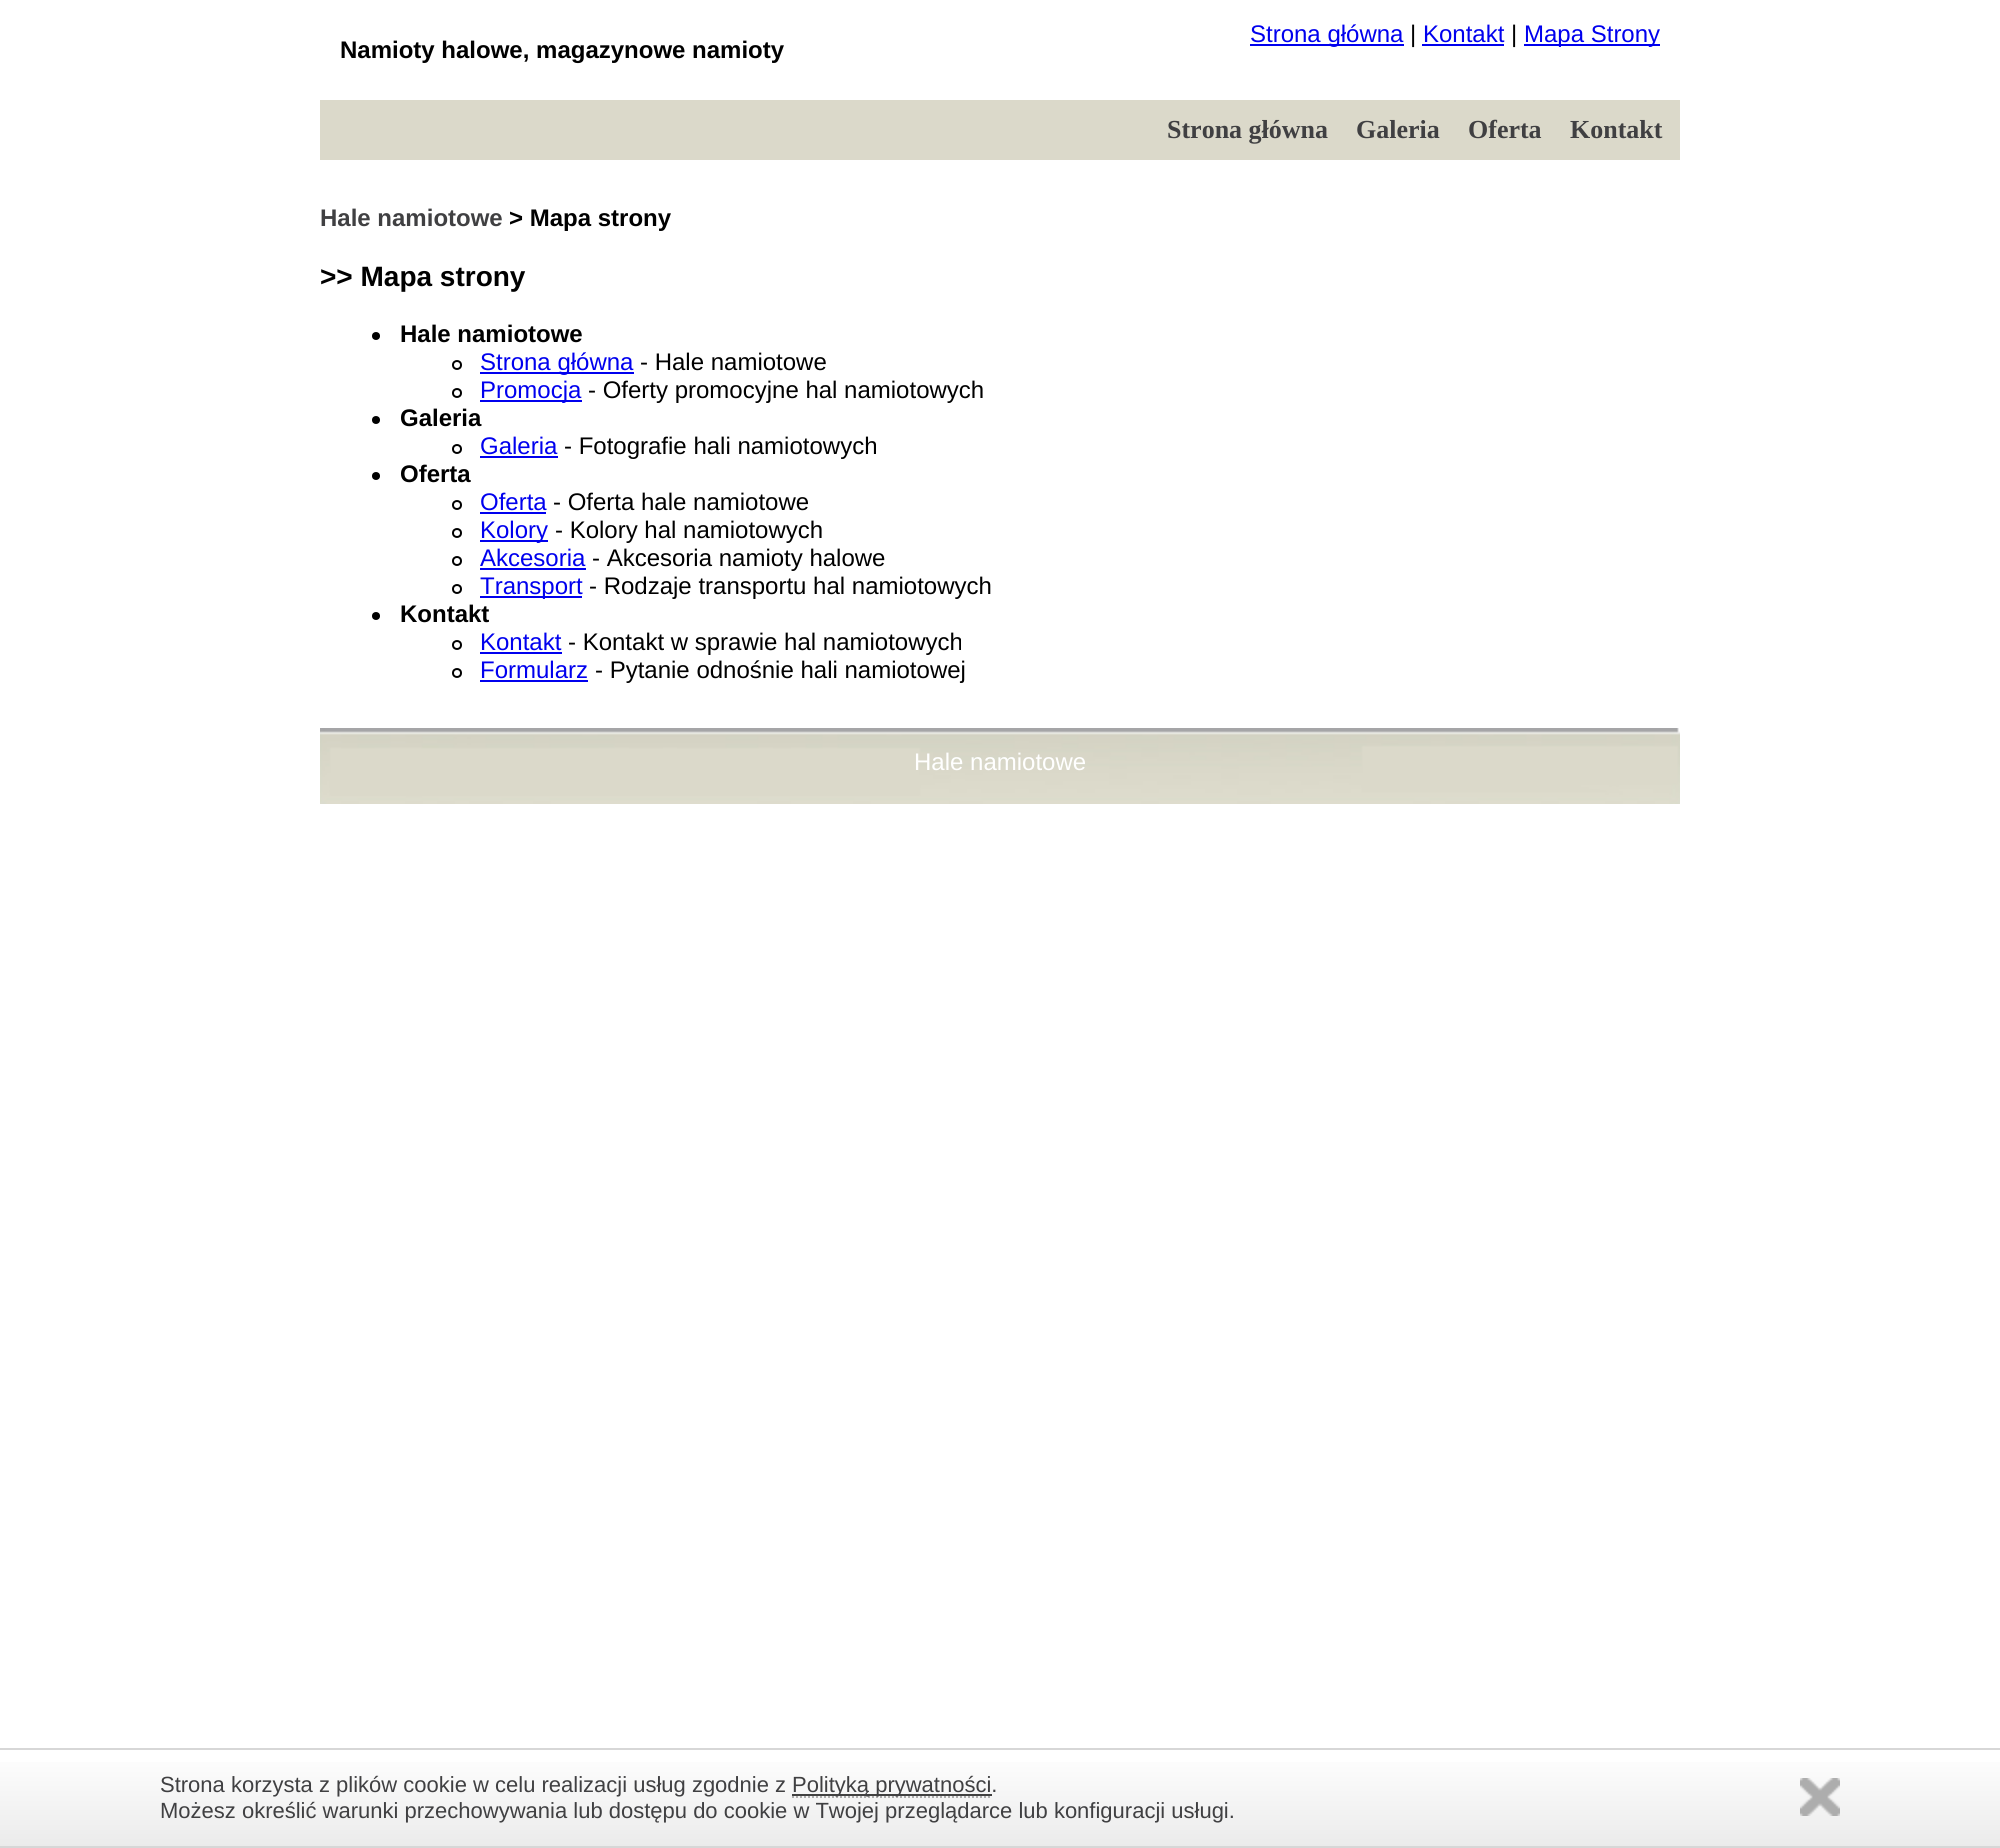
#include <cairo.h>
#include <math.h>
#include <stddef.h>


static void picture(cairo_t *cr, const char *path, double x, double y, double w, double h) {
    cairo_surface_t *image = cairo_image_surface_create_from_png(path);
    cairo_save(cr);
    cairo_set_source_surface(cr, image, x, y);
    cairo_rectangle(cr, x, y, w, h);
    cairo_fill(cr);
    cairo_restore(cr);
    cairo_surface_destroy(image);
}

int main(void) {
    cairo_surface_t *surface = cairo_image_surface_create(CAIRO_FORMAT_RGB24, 2000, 1848);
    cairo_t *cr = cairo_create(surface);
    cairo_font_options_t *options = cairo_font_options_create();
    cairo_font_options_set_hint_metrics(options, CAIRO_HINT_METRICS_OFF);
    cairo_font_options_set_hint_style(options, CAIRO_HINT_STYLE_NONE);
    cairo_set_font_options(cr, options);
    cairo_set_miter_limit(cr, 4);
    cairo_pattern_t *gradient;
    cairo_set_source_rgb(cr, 1, 1, 1);
    cairo_paint(cr);
    cairo_set_source_rgb(cr, 0, 0, 0.933);
    cairo_rectangle(cr, 1250, 44, 154, 2);
    cairo_fill(cr);
    cairo_select_font_face(cr, "Liberation Sans", CAIRO_FONT_SLANT_NORMAL, CAIRO_FONT_WEIGHT_NORMAL);
    cairo_set_font_size(cr, 24);
    cairo_move_to(cr, 1250, 42);
    cairo_show_text(cr, "Strona główna");
    cairo_set_source_rgb(cr, 0, 0, 0);
    cairo_move_to(cr, 1410, 42);
    cairo_show_text(cr, "|");
    cairo_set_source_rgb(cr, 0, 0, 0.933);
    cairo_move_to(cr, 1423, 42);
    cairo_show_text(cr, "Kontakt");
    cairo_rectangle(cr, 1422, 44, 82, 2);
    cairo_fill(cr);
    cairo_set_source_rgb(cr, 0, 0, 0);
    cairo_move_to(cr, 1511, 42);
    cairo_show_text(cr, "|");
    cairo_set_source_rgb(cr, 0, 0, 0.933);
    cairo_rectangle(cr, 1524, 44, 136, 2);
    cairo_fill(cr);
    cairo_move_to(cr, 1524, 42);
    cairo_show_text(cr, "Mapa Strony");
    cairo_select_font_face(cr, "Liberation Sans", CAIRO_FONT_SLANT_NORMAL, CAIRO_FONT_WEIGHT_BOLD);
    cairo_set_source_rgb(cr, 0, 0, 0);
    cairo_move_to(cr, 340, 58);
    cairo_show_text(cr, "Namioty halowe, magazynowe namioty");
    cairo_set_source_rgb(cr, 0.859, 0.851, 0.792);
    cairo_rectangle(cr, 320, 100, 1360, 60);
    cairo_fill(cr);
    cairo_select_font_face(cr, "Liberation Serif", CAIRO_FONT_SLANT_NORMAL, CAIRO_FONT_WEIGHT_BOLD);
    cairo_set_font_size(cr, 26);
    cairo_set_source_rgb(cr, 0.251, 0.251, 0.259);
    cairo_move_to(cr, 1167, 138);
    cairo_show_text(cr, "Strona główna");
    cairo_move_to(cr, 1356, 138);
    cairo_show_text(cr, "Galeria");
    cairo_move_to(cr, 1468, 138);
    cairo_show_text(cr, "Oferta");
    cairo_move_to(cr, 1570, 138);
    cairo_show_text(cr, "Kontakt");
    cairo_select_font_face(cr, "Liberation Sans", CAIRO_FONT_SLANT_NORMAL, CAIRO_FONT_WEIGHT_BOLD);
    cairo_set_font_size(cr, 24);
    cairo_move_to(cr, 320, 226);
    cairo_show_text(cr, "Hale namiotowe");
    cairo_set_source_rgb(cr, 0, 0, 0);
    cairo_move_to(cr, 509, 226);
    cairo_show_text(cr, "> Mapa strony");
    cairo_set_font_size(cr, 28);
    cairo_move_to(cr, 320, 286);
    cairo_show_text(cr, ">> Mapa strony");
    cairo_new_path(cr);
    cairo_arc(cr, 376, 336, 4, 0, 2 * M_PI);
    cairo_fill(cr);
    cairo_set_font_size(cr, 24);
    cairo_move_to(cr, 400, 342);
    cairo_show_text(cr, "Hale namiotowe");
    cairo_new_path(cr);
    cairo_arc(cr, 457, 365, 4, 0, 2 * M_PI);
    cairo_stroke(cr);
    cairo_set_source_rgb(cr, 0, 0, 0.933);
    cairo_rectangle(cr, 480, 372, 154, 2);
    cairo_fill(cr);
    cairo_select_font_face(cr, "Liberation Sans", CAIRO_FONT_SLANT_NORMAL, CAIRO_FONT_WEIGHT_NORMAL);
    cairo_move_to(cr, 480, 370);
    cairo_show_text(cr, "Strona główna");
    cairo_set_source_rgb(cr, 0, 0, 0);
    cairo_move_to(cr, 640, 370);
    cairo_show_text(cr, "- Hale namiotowe");
    cairo_new_path(cr);
    cairo_arc(cr, 457, 393, 4, 0, 2 * M_PI);
    cairo_stroke(cr);
    cairo_set_source_rgb(cr, 0, 0, 0.933);
    cairo_rectangle(cr, 480, 400, 102, 2);
    cairo_fill(cr);
    cairo_move_to(cr, 480, 398);
    cairo_show_text(cr, "Promocja");
    cairo_set_source_rgb(cr, 0, 0, 0);
    cairo_move_to(cr, 588, 398);
    cairo_show_text(cr, "- Oferty promocyjne hal namiotowych");
    cairo_new_path(cr);
    cairo_arc(cr, 376, 420, 4, 0, 2 * M_PI);
    cairo_fill(cr);
    cairo_select_font_face(cr, "Liberation Sans", CAIRO_FONT_SLANT_NORMAL, CAIRO_FONT_WEIGHT_BOLD);
    cairo_move_to(cr, 400, 426);
    cairo_show_text(cr, "Galeria");
    cairo_new_path(cr);
    cairo_arc(cr, 457, 449, 4, 0, 2 * M_PI);
    cairo_stroke(cr);
    cairo_select_font_face(cr, "Liberation Sans", CAIRO_FONT_SLANT_NORMAL, CAIRO_FONT_WEIGHT_NORMAL);
    cairo_set_source_rgb(cr, 0, 0, 0.933);
    cairo_move_to(cr, 480, 454);
    cairo_show_text(cr, "Galeria");
    cairo_rectangle(cr, 480, 456, 78, 2);
    cairo_fill(cr);
    cairo_set_source_rgb(cr, 0, 0, 0);
    cairo_move_to(cr, 564, 454);
    cairo_show_text(cr, "- Fotografie hali namiotowych");
    cairo_new_path(cr);
    cairo_arc(cr, 376, 476, 4, 0, 2 * M_PI);
    cairo_fill(cr);
    cairo_select_font_face(cr, "Liberation Sans", CAIRO_FONT_SLANT_NORMAL, CAIRO_FONT_WEIGHT_BOLD);
    cairo_move_to(cr, 400, 482);
    cairo_show_text(cr, "Oferta");
    cairo_new_path(cr);
    cairo_arc(cr, 457, 505, 4, 0, 2 * M_PI);
    cairo_stroke(cr);
    cairo_select_font_face(cr, "Liberation Sans", CAIRO_FONT_SLANT_NORMAL, CAIRO_FONT_WEIGHT_NORMAL);
    cairo_set_source_rgb(cr, 0, 0, 0.933);
    cairo_move_to(cr, 480, 510);
    cairo_show_text(cr, "Oferta");
    cairo_rectangle(cr, 480, 512, 66, 2);
    cairo_fill(cr);
    cairo_set_source_rgb(cr, 0, 0, 0);
    cairo_move_to(cr, 553, 510);
    cairo_show_text(cr, "- Oferta hale namiotowe");
    cairo_new_path(cr);
    cairo_arc(cr, 457, 533, 4, 0, 2 * M_PI);
    cairo_stroke(cr);
    cairo_set_source_rgb(cr, 0, 0, 0.933);
    cairo_rectangle(cr, 480, 540, 68, 2);
    cairo_fill(cr);
    cairo_move_to(cr, 480, 538);
    cairo_show_text(cr, "Kolory");
    cairo_set_source_rgb(cr, 0, 0, 0);
    cairo_move_to(cr, 555, 538);
    cairo_show_text(cr, "- Kolory hal namiotowych");
    cairo_new_path(cr);
    cairo_arc(cr, 457, 561, 4, 0, 2 * M_PI);
    cairo_stroke(cr);
    cairo_set_source_rgb(cr, 0, 0, 0.933);
    cairo_move_to(cr, 480, 566);
    cairo_show_text(cr, "Akcesoria");
    cairo_rectangle(cr, 480, 568, 106, 2);
    cairo_fill(cr);
    cairo_set_source_rgb(cr, 0, 0, 0);
    cairo_move_to(cr, 592, 566);
    cairo_show_text(cr, "- Akcesoria namioty halowe");
    cairo_new_path(cr);
    cairo_arc(cr, 457, 589, 4, 0, 2 * M_PI);
    cairo_stroke(cr);
    cairo_set_source_rgb(cr, 0, 0, 0.933);
    cairo_rectangle(cr, 480, 596, 102, 2);
    cairo_fill(cr);
    cairo_move_to(cr, 480, 594);
    cairo_show_text(cr, "Transport");
    cairo_set_source_rgb(cr, 0, 0, 0);
    cairo_move_to(cr, 589, 594);
    cairo_show_text(cr, "- Rodzaje transportu hal namiotowych");
    cairo_new_path(cr);
    cairo_arc(cr, 376, 616, 4, 0, 2 * M_PI);
    cairo_fill(cr);
    cairo_select_font_face(cr, "Liberation Sans", CAIRO_FONT_SLANT_NORMAL, CAIRO_FONT_WEIGHT_BOLD);
    cairo_move_to(cr, 400, 622);
    cairo_show_text(cr, "Kontakt");
    cairo_new_path(cr);
    cairo_arc(cr, 457, 645, 4, 0, 2 * M_PI);
    cairo_stroke(cr);
    cairo_select_font_face(cr, "Liberation Sans", CAIRO_FONT_SLANT_NORMAL, CAIRO_FONT_WEIGHT_NORMAL);
    cairo_set_source_rgb(cr, 0, 0, 0.933);
    cairo_move_to(cr, 480, 650);
    cairo_show_text(cr, "Kontakt");
    cairo_rectangle(cr, 480, 652, 82, 2);
    cairo_fill(cr);
    cairo_set_source_rgb(cr, 0, 0, 0);
    cairo_move_to(cr, 568, 650);
    cairo_show_text(cr, "- Kontakt w sprawie hal namiotowych");
    cairo_new_path(cr);
    cairo_arc(cr, 457, 673, 4, 0, 2 * M_PI);
    cairo_stroke(cr);
    cairo_set_source_rgb(cr, 0, 0, 0.933);
    cairo_move_to(cr, 480, 678);
    cairo_show_text(cr, "Formularz");
    cairo_rectangle(cr, 480, 680, 108, 2);
    cairo_fill(cr);
    cairo_set_source_rgb(cr, 0, 0, 0);
    cairo_move_to(cr, 595, 678);
    cairo_show_text(cr, "- Pytanie odnośnie hali namiotowej");
    picture(cr, "img1.png", 320, 728, 1360, 76);
    cairo_set_source_rgb(cr, 1, 1, 1);
    cairo_move_to(cr, 914, 770);
    cairo_show_text(cr, "Hale namiotowe");
    gradient = cairo_pattern_create_linear(1000, 1750, 1000, 1846);
    cairo_pattern_add_color_stop_rgba(gradient, 0, 1, 1, 1, 1);
    cairo_pattern_add_color_stop_rgba(gradient, 1, 0.922, 0.922, 0.922, 1);
    cairo_set_source(cr, gradient);
    cairo_pattern_destroy(gradient);
    cairo_rectangle(cr, 0, 1762, 2000, 84);
    cairo_fill(cr);
    cairo_set_source_rgb(cr, 0.843, 0.843, 0.843);
    cairo_rectangle(cr, 0, 1748, 2000, 2);
    cairo_fill(cr);
    cairo_rectangle(cr, 0, 1846, 2000, 2);
    cairo_fill(cr);
    cairo_set_font_size(cr, 22);
    cairo_set_source_rgb(cr, 0.251, 0.251, 0.259);
    cairo_move_to(cr, 160, 1792);
    cairo_show_text(cr, "Strona korzysta z plików cookie w celu realizacji usług zgodnie z");
    cairo_new_path(cr);
    cairo_move_to(cr, 792, 1797);
    cairo_line_to(cr, 992, 1797);
    cairo_set_source_rgb(cr, 0.682, 0.682, 0.682);
    cairo_set_dash(cr, (double[]){2, 2}, 2, 0);
    cairo_stroke(cr);
    cairo_set_source_rgb(cr, 0.255, 0.255, 0.255);
    cairo_rectangle(cr, 792, 1794, 200, 2);
    cairo_fill(cr);
    cairo_set_source_rgb(cr, 0.251, 0.251, 0.259);
    cairo_move_to(cr, 792, 1792);
    cairo_show_text(cr, "Polityką prywatności.");
    picture(cr, "img2.png", 1800, 1778, 40, 38);
    cairo_move_to(cr, 160, 1818);
    cairo_show_text(cr, "Możesz określić warunki przechowywania lub dostępu do cookie w Twojej przeglądarce lub konfiguracji usługi.");
    cairo_surface_write_to_png(surface, "page.png");
    cairo_font_options_destroy(options);
    cairo_destroy(cr);
    cairo_surface_destroy(surface);
    return 0;
}
